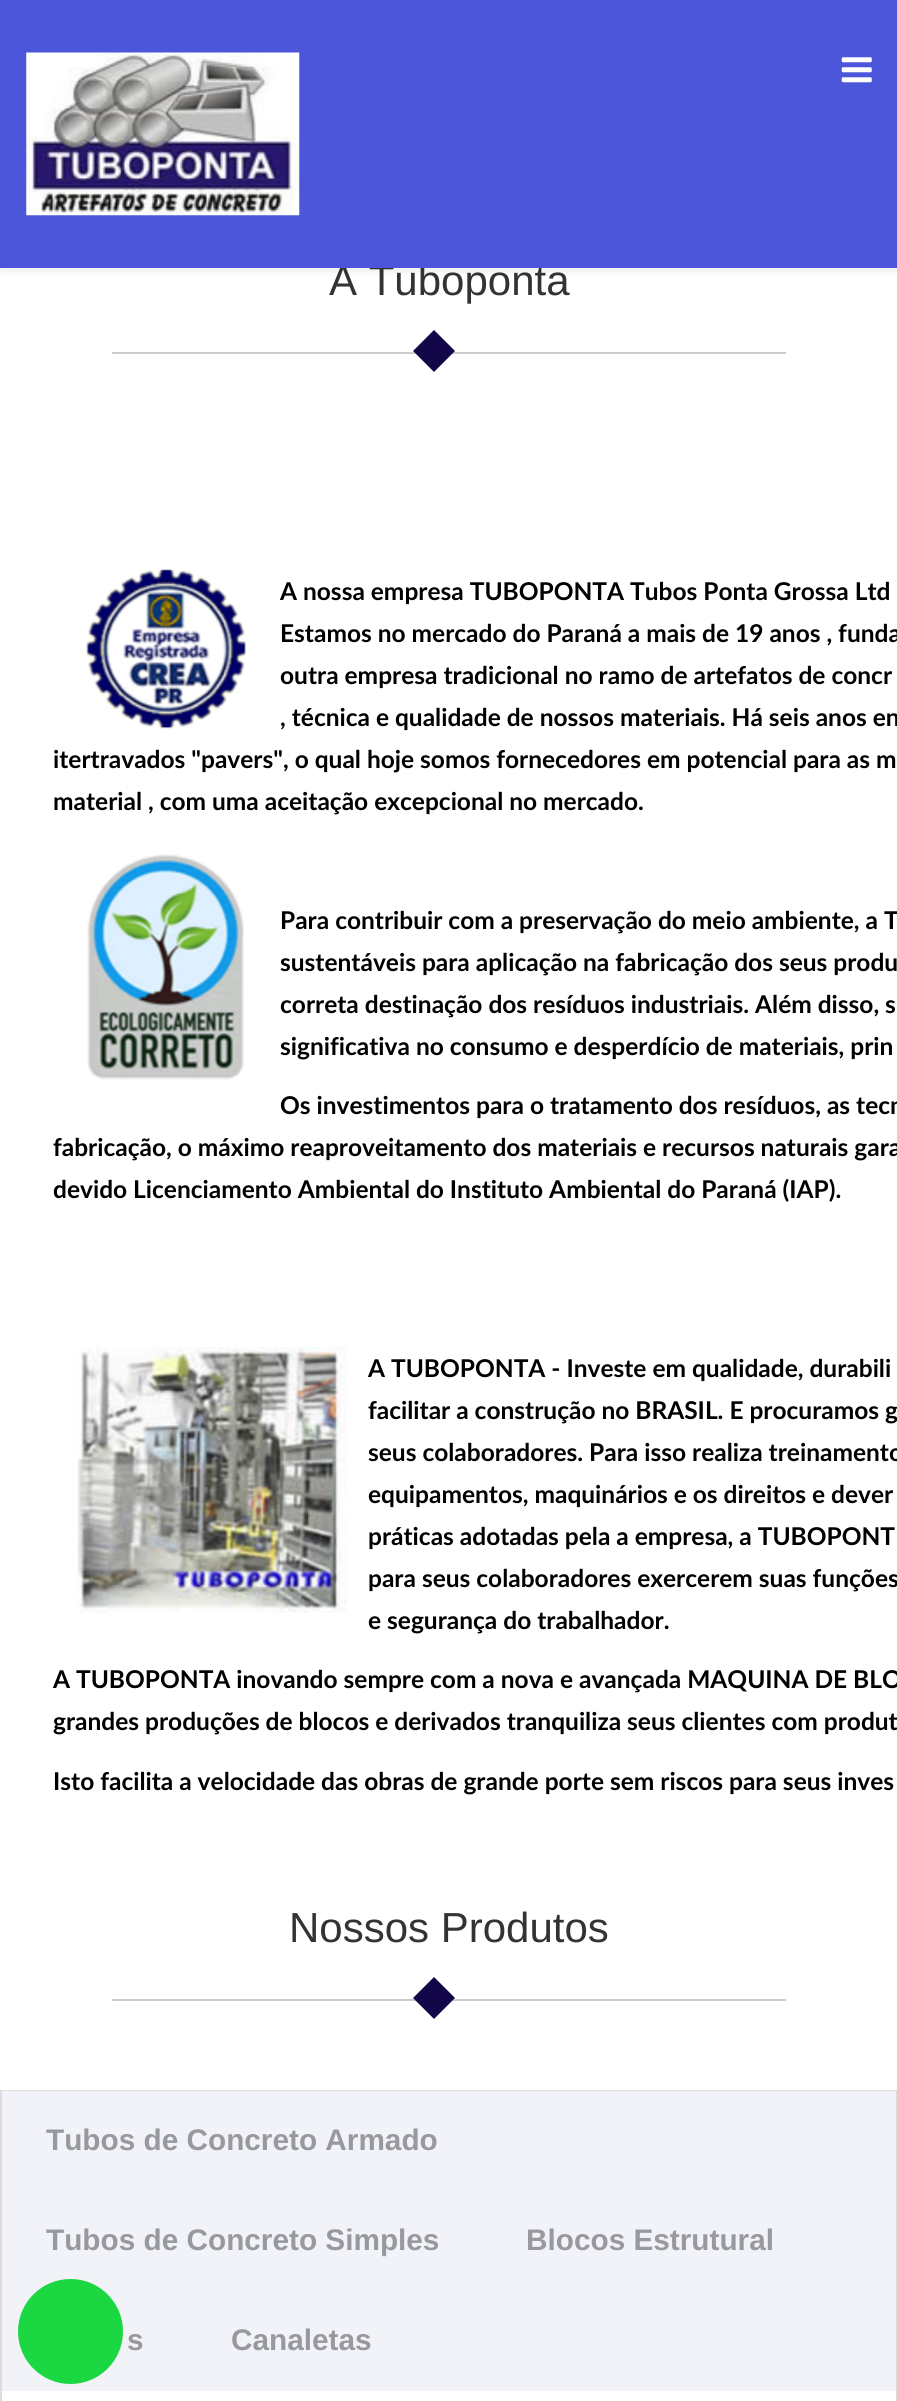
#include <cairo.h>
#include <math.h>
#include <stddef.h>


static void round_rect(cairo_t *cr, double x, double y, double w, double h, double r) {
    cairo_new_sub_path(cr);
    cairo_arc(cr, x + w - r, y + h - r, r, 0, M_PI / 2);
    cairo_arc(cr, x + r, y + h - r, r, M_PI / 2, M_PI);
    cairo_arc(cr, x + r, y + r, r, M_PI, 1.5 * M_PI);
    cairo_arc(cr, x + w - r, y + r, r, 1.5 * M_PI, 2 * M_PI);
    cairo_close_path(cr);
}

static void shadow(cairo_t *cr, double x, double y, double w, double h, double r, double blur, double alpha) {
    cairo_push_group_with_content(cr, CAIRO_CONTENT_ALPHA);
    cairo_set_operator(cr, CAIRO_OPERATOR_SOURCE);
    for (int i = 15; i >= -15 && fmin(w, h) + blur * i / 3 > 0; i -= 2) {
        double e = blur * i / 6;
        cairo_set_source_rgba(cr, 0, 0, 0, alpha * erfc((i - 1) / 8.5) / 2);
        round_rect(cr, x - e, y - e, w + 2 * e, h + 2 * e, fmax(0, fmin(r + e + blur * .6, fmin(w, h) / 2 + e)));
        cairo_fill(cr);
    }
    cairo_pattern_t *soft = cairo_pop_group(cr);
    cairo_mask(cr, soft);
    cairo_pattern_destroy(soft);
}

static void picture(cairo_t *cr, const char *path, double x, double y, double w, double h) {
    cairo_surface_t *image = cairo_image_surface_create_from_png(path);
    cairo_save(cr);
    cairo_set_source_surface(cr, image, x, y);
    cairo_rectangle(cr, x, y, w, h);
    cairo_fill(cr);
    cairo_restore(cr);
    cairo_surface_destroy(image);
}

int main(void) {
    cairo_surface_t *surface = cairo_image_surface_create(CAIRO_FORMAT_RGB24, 897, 2401);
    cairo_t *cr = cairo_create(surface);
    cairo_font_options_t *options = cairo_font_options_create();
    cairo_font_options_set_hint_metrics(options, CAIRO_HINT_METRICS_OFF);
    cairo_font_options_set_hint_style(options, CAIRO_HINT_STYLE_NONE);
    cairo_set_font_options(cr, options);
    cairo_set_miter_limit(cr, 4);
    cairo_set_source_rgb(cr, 1, 1, 1);
    cairo_paint(cr);
    cairo_set_source_rgb(cr, 0, 0, 0);
    shadow(cr, 0, 5, 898, 268, 0, 2.5, 0.05);
    cairo_select_font_face(cr, "Liberation Sans", CAIRO_FONT_SLANT_NORMAL, CAIRO_FONT_WEIGHT_NORMAL);
    cairo_set_font_size(cr, 42);
    cairo_set_source_rgb(cr, 0.2, 0.2, 0.2);
    cairo_move_to(cr, 329, 295);
    cairo_show_text(cr, "A Tuboponta");
    cairo_set_source_rgb(cr, 0.298, 0.337, 0.859);
    cairo_rectangle(cr, 0, 0, 897, 268);
    cairo_fill(cr);
    picture(cr, "img1.png", 26, 52, 274, 164);
    picture(cr, "img2.png", 841, 57, 31, 26);
    cairo_set_source_rgb(cr, 0.8, 0.8, 0.8);
    cairo_rectangle(cr, 112, 352, 674, 2);
    cairo_fill(cr);
    cairo_set_source_rgb(cr, 0.075, 0.027, 0.286);
    cairo_new_path(cr);
    cairo_move_to(cr, 413, 351);
    cairo_line_to(cr, 434, 330);
    cairo_line_to(cr, 455, 351);
    cairo_line_to(cr, 434, 372);
    cairo_close_path(cr);
    cairo_fill(cr);
    picture(cr, "img3.png", 86, 569, 160, 160);
    cairo_select_font_face(cr, "Lato", CAIRO_FONT_SLANT_NORMAL, CAIRO_FONT_WEIGHT_BOLD);
    cairo_set_font_size(cr, 24.5);
    cairo_set_source_rgb(cr, 0, 0, 0);
    cairo_move_to(cr, 280, 600);
    cairo_show_text(cr, "A nossa empresa TUBOPONTA Tubos Ponta Grossa Ltd");
    cairo_move_to(cr, 280, 642);
    cairo_show_text(cr, "Estamos no mercado do Paraná a mais de 19 anos , funda");
    cairo_move_to(cr, 280, 684);
    cairo_show_text(cr, "outra empresa tradicional no ramo de artefatos de concr");
    cairo_move_to(cr, 280, 726);
    cairo_show_text(cr, ", técnica e qualidade de nossos materiais. Há seis anos en");
    cairo_move_to(cr, 53, 768);
    cairo_show_text(cr, "itertravados \"pavers\", o qual hoje somos fornecedores em potencial para as m");
    cairo_move_to(cr, 53, 810);
    cairo_show_text(cr, "material , com uma aceitação excepcional no mercado.");
    picture(cr, "img4.png", 87, 854, 157, 226);
    cairo_move_to(cr, 280, 929);
    cairo_show_text(cr, "Para contribuir com a preservação do meio ambiente, a T");
    cairo_move_to(cr, 280, 971);
    cairo_show_text(cr, "sustentáveis para aplicação na fabricação dos seus produ");
    cairo_move_to(cr, 280, 1013);
    cairo_show_text(cr, "correta destinação dos resíduos industriais. Além disso, s");
    cairo_move_to(cr, 280, 1055);
    cairo_show_text(cr, "significativa no consumo e desperdício de materiais, prin");
    cairo_move_to(cr, 280, 1114);
    cairo_show_text(cr, "Os investimentos para o tratamento dos resíduos, as tecn");
    cairo_move_to(cr, 53, 1156);
    cairo_show_text(cr, "fabricação, o máximo reaproveitamento dos materiais e recursos naturais gara");
    cairo_move_to(cr, 53, 1198);
    cairo_show_text(cr, "devido Licenciamento Ambiental do Instituto Ambiental do Paraná (IAP).");
    picture(cr, "img5.png", 77, 1347, 270, 266);
    cairo_move_to(cr, 368, 1377);
    cairo_show_text(cr, "A TUBOPONTA - Investe em qualidade, durabili");
    cairo_move_to(cr, 368, 1419);
    cairo_show_text(cr, "facilitar a construção no BRASIL. E procuramos g");
    cairo_move_to(cr, 368, 1461);
    cairo_show_text(cr, "seus colaboradores. Para isso realiza treinamento");
    cairo_move_to(cr, 368, 1503);
    cairo_show_text(cr, "equipamentos, maquinários e os direitos e dever");
    cairo_move_to(cr, 368, 1545);
    cairo_show_text(cr, "práticas adotadas pela a empresa, a TUBOPONT");
    cairo_move_to(cr, 368, 1587);
    cairo_show_text(cr, "para seus colaboradores exercerem suas funções");
    cairo_move_to(cr, 368, 1629);
    cairo_show_text(cr, "e segurança do trabalhador.");
    cairo_move_to(cr, 53, 1688);
    cairo_show_text(cr, "A TUBOPONTA inovando sempre com a nova e avançada MAQUINA DE BLO");
    cairo_move_to(cr, 53, 1730);
    cairo_show_text(cr, "grandes produções de blocos e derivados tranquiliza seus clientes com produt");
    cairo_move_to(cr, 53, 1790);
    cairo_show_text(cr, "Isto facilita a velocidade das obras de grande porte sem riscos para seus inves");
    cairo_select_font_face(cr, "Liberation Sans", CAIRO_FONT_SLANT_NORMAL, CAIRO_FONT_WEIGHT_NORMAL);
    cairo_set_font_size(cr, 42);
    cairo_set_source_rgb(cr, 0.2, 0.2, 0.2);
    cairo_move_to(cr, 289, 1942);
    cairo_show_text(cr, "Nossos Produtos");
    cairo_set_source_rgb(cr, 0.8, 0.8, 0.8);
    cairo_rectangle(cr, 112, 1999, 674, 2);
    cairo_fill(cr);
    cairo_set_source_rgb(cr, 0.075, 0.027, 0.286);
    cairo_new_path(cr);
    cairo_move_to(cr, 413, 1998);
    cairo_line_to(cr, 434, 1977);
    cairo_line_to(cr, 455, 1998);
    cairo_line_to(cr, 434, 2019);
    cairo_close_path(cr);
    cairo_fill(cr);
    cairo_rectangle(cr, 1, 2091, 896, 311);
    cairo_set_source_rgb(cr, 0.867, 0.867, 0.867);
    cairo_stroke(cr);
    cairo_set_source_rgb(cr, 0.949, 0.953, 0.973);
    cairo_rectangle(cr, 2, 2091, 894, 300);
    cairo_fill(cr);
    cairo_select_font_face(cr, "Liberation Sans", CAIRO_FONT_SLANT_NORMAL, CAIRO_FONT_WEIGHT_BOLD);
    cairo_set_font_size(cr, 29.75);
    cairo_set_source_rgb(cr, 0.596, 0.6, 0.62);
    cairo_move_to(cr, 46, 2150);
    cairo_show_text(cr, "Tubos de Concreto Armado");
    cairo_move_to(cr, 46, 2250);
    cairo_show_text(cr, "Tubos de Concreto Simples");
    cairo_move_to(cr, 526, 2250);
    cairo_show_text(cr, "Blocos Estrutural");
    cairo_move_to(cr, 127, 2350);
    cairo_show_text(cr, "s");
    cairo_move_to(cr, 231, 2350);
    cairo_show_text(cr, "Canaletas");
    cairo_set_source_rgb(cr, 0.106, 0.843, 0.255);
    cairo_new_path(cr);
    cairo_arc(cr, 70.5, 2331.5, 52.5, 0, 2 * M_PI);
    cairo_fill(cr);
    cairo_surface_write_to_png(surface, "page.png");
    cairo_font_options_destroy(options);
    cairo_destroy(cr);
    cairo_surface_destroy(surface);
    return 0;
}
